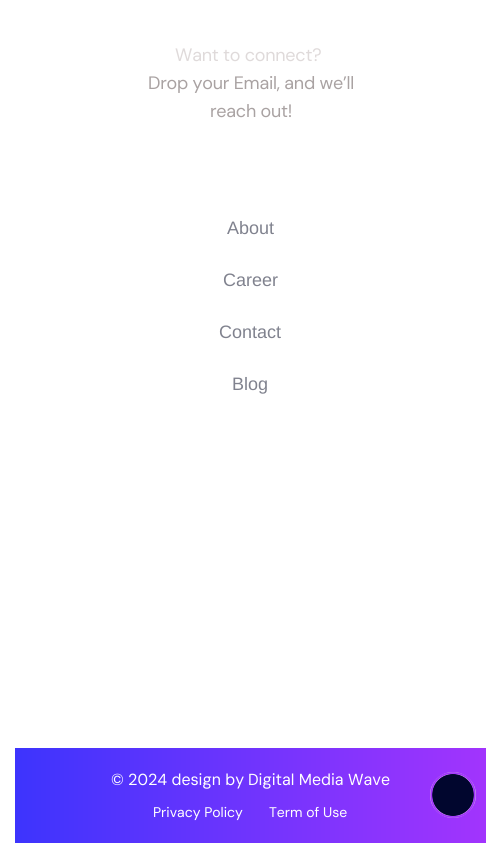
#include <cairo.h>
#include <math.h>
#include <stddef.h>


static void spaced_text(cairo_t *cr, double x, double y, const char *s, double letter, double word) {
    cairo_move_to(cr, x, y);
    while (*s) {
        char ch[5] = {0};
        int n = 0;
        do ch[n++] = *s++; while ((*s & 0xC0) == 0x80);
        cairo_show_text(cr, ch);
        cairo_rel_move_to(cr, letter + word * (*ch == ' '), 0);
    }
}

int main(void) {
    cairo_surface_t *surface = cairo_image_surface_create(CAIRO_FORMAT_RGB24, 501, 843);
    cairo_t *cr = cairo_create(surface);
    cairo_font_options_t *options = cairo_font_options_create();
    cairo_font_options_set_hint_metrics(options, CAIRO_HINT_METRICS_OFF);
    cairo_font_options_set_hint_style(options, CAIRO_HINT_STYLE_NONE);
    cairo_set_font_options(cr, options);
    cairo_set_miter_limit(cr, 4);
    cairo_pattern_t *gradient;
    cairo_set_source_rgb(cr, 1, 1, 1);
    cairo_paint(cr);
    cairo_select_font_face(cr, "DM Sans", CAIRO_FONT_SLANT_NORMAL, CAIRO_FONT_WEIGHT_NORMAL);
    cairo_set_font_size(cr, 18);
    cairo_set_source_rgb(cr, 0.875, 0.855, 0.855);
    spaced_text(cr, 175, 61, "Want to connect?", -0.25, 0);
    cairo_set_source_rgb(cr, 0.663, 0.635, 0.635);
    spaced_text(cr, 148, 89, "Drop your Email, and we’ll", -0.25, 0);
    spaced_text(cr, 210, 117, "reach out!", -0.25, 0);
    cairo_select_font_face(cr, "Liberation Sans", CAIRO_FONT_SLANT_NORMAL, CAIRO_FONT_WEIGHT_NORMAL);
    cairo_set_source_rgb(cr, 0.502, 0.51, 0.557);
    cairo_move_to(cr, 227, 234);
    cairo_show_text(cr, "About");
    cairo_move_to(cr, 223, 286);
    cairo_show_text(cr, "Career");
    cairo_move_to(cr, 219, 338);
    cairo_show_text(cr, "Contact");
    cairo_move_to(cr, 232, 390);
    cairo_show_text(cr, "Blog");
    gradient = cairo_pattern_create_linear(15, 796, 486, 796);
    cairo_pattern_add_color_stop_rgba(gradient, 0, 0.239, 0.204, 0.992, 1);
    cairo_pattern_add_color_stop_rgba(gradient, 1, 0.635, 0.204, 0.992, 1);
    cairo_set_source(cr, gradient);
    cairo_pattern_destroy(gradient);
    cairo_rectangle(cr, 15, 748, 471, 95);
    cairo_fill(cr);
    cairo_select_font_face(cr, "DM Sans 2", CAIRO_FONT_SLANT_NORMAL, CAIRO_FONT_WEIGHT_NORMAL);
    cairo_set_font_size(cr, 16);
    cairo_set_source_rgb(cr, 1, 1, 1);
    cairo_move_to(cr, 111, 785);
    cairo_show_text(cr, "© 2024 design by");
    cairo_move_to(cr, 248, 785);
    cairo_show_text(cr, "Digital Media Wave");
    cairo_select_font_face(cr, "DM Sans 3", CAIRO_FONT_SLANT_NORMAL, CAIRO_FONT_WEIGHT_NORMAL);
    cairo_set_font_size(cr, 14);
    cairo_move_to(cr, 153, 817);
    cairo_show_text(cr, "Privacy Policy");
    cairo_move_to(cr, 269, 817);
    cairo_show_text(cr, "Term of Use");
    cairo_new_path(cr);
    cairo_arc(cr, 453, 795, 22, 0, 2 * M_PI);
    cairo_set_source_rgb(cr, 0.831, 0.831, 0.831);
    cairo_stroke(cr);
    cairo_set_source_rgb(cr, 0.004, 0.024, 0.18);
    cairo_arc(cr, 453, 795, 21, 0, 2 * M_PI);
    cairo_fill(cr);
    cairo_new_path(cr);
    cairo_move_to(cr, 453, 773);
    cairo_curve_to(cr, 482, 773, 482, 817, 453, 817);
    cairo_curve_to(cr, 424, 817, 424, 773, 453, 773);
    cairo_set_source_rgb(cr, 0.635, 0.204, 0.992);
    cairo_set_line_width(cr, 1.8);
    cairo_stroke(cr);
    cairo_surface_write_to_png(surface, "page.png");
    cairo_font_options_destroy(options);
    cairo_destroy(cr);
    cairo_surface_destroy(surface);
    return 0;
}
